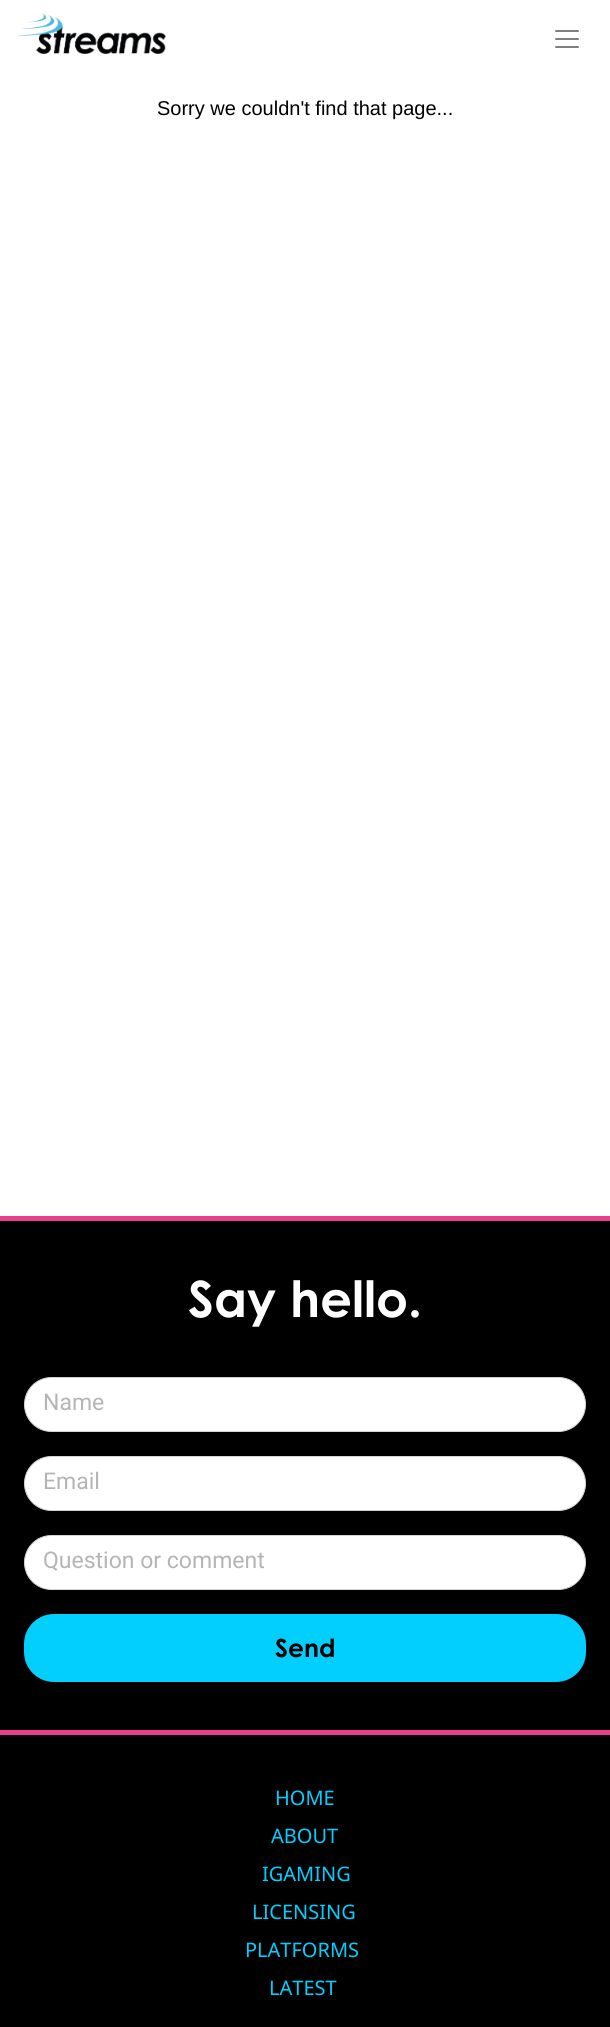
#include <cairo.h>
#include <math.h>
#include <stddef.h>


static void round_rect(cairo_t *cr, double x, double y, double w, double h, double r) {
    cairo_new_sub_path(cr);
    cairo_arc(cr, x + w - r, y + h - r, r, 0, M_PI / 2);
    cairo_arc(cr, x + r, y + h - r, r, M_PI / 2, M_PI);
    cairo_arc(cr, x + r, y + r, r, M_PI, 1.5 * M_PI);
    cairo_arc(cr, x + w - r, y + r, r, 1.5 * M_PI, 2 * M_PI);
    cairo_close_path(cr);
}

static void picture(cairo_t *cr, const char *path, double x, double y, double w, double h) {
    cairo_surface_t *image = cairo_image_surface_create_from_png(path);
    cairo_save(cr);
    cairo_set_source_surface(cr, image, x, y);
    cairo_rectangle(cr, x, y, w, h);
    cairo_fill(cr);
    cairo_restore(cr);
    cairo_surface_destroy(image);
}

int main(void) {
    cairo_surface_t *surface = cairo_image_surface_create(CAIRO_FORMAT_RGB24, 610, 2027);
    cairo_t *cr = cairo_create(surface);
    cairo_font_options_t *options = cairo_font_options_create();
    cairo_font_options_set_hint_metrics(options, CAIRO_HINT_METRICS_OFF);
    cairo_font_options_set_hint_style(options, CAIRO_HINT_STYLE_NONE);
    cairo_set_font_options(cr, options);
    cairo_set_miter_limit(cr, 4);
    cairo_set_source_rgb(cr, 1, 1, 1);
    cairo_paint(cr);
    picture(cr, "img1.png", 16, 13, 150, 41);
    picture(cr, "img2.png", 555, 30, 24, 18);
    cairo_select_font_face(cr, "Liberation Sans", CAIRO_FONT_SLANT_NORMAL, CAIRO_FONT_WEIGHT_NORMAL);
    cairo_set_font_size(cr, 20);
    cairo_set_source_rgb(cr, 0, 0, 0);
    cairo_move_to(cr, 157, 115);
    cairo_show_text(cr, "Sorry we couldn't find that page...");
    cairo_rectangle(cr, 0, 1221, 610, 806);
    cairo_fill(cr);
    cairo_set_source_rgb(cr, 0.91, 0.243, 0.549);
    cairo_rectangle(cr, 0, 1216, 610, 5);
    cairo_fill(cr);
    cairo_select_font_face(cr, "Century Gothic", CAIRO_FONT_SLANT_NORMAL, CAIRO_FONT_WEIGHT_BOLD);
    cairo_set_font_size(cr, 50);
    cairo_set_source_rgb(cr, 1, 1, 1);
    cairo_move_to(cr, 188, 1317);
    cairo_show_text(cr, "Say hello.");
    round_rect(cr, 24.5, 1377.5, 561, 54, 27);
    cairo_fill_preserve(cr);
    cairo_set_source_rgb(cr, 0.808, 0.831, 0.855);
    cairo_set_line_width(cr, 1);
    cairo_stroke(cr);
    cairo_select_font_face(cr, "Roboto", CAIRO_FONT_SLANT_NORMAL, CAIRO_FONT_WEIGHT_NORMAL);
    cairo_set_font_size(cr, 23);
    cairo_set_source_rgb(cr, 0.71, 0.71, 0.71);
    cairo_move_to(cr, 43, 1410);
    cairo_show_text(cr, "Name");
    cairo_set_source_rgb(cr, 1, 1, 1);
    round_rect(cr, 24.5, 1456.5, 561, 54, 27);
    cairo_fill_preserve(cr);
    cairo_set_source_rgb(cr, 0.808, 0.831, 0.855);
    cairo_stroke(cr);
    cairo_set_source_rgb(cr, 0.71, 0.71, 0.71);
    cairo_move_to(cr, 43, 1489);
    cairo_show_text(cr, "Email");
    cairo_set_source_rgb(cr, 1, 1, 1);
    round_rect(cr, 24.5, 1535.5, 561, 54, 27);
    cairo_fill_preserve(cr);
    cairo_set_source_rgb(cr, 0.808, 0.831, 0.855);
    cairo_stroke(cr);
    cairo_set_source_rgb(cr, 0.71, 0.71, 0.71);
    cairo_move_to(cr, 43, 1568);
    cairo_show_text(cr, "Question or comment");
    cairo_set_source_rgb(cr, 0.012, 0.812, 1);
    round_rect(cr, 24, 1614, 562, 68, 30);
    cairo_fill(cr);
    cairo_select_font_face(cr, "Century Gothic", CAIRO_FONT_SLANT_NORMAL, CAIRO_FONT_WEIGHT_BOLD);
    cairo_set_font_size(cr, 25);
    cairo_set_source_rgb(cr, 0, 0, 0);
    cairo_move_to(cr, 275, 1657);
    cairo_show_text(cr, "Send");
    cairo_set_source_rgb(cr, 0.91, 0.243, 0.549);
    cairo_rectangle(cr, 0, 1730, 610, 5);
    cairo_fill(cr);
    cairo_select_font_face(cr, "Noto Sans", CAIRO_FONT_SLANT_NORMAL, CAIRO_FONT_WEIGHT_NORMAL);
    cairo_set_font_size(cr, 20);
    cairo_set_source_rgb(cr, 0.012, 0.812, 1);
    cairo_move_to(cr, 275, 1805);
    cairo_show_text(cr, "HOME");
    cairo_move_to(cr, 271, 1843);
    cairo_show_text(cr, "ABOUT");
    cairo_move_to(cr, 262, 1881);
    cairo_show_text(cr, "IGAMING");
    cairo_move_to(cr, 252, 1919);
    cairo_show_text(cr, "LICENSING");
    cairo_move_to(cr, 245, 1957);
    cairo_show_text(cr, "PLATFORMS");
    cairo_move_to(cr, 269, 1995);
    cairo_show_text(cr, "LATEST");
    cairo_surface_write_to_png(surface, "page.png");
    cairo_font_options_destroy(options);
    cairo_destroy(cr);
    cairo_surface_destroy(surface);
    return 0;
}
